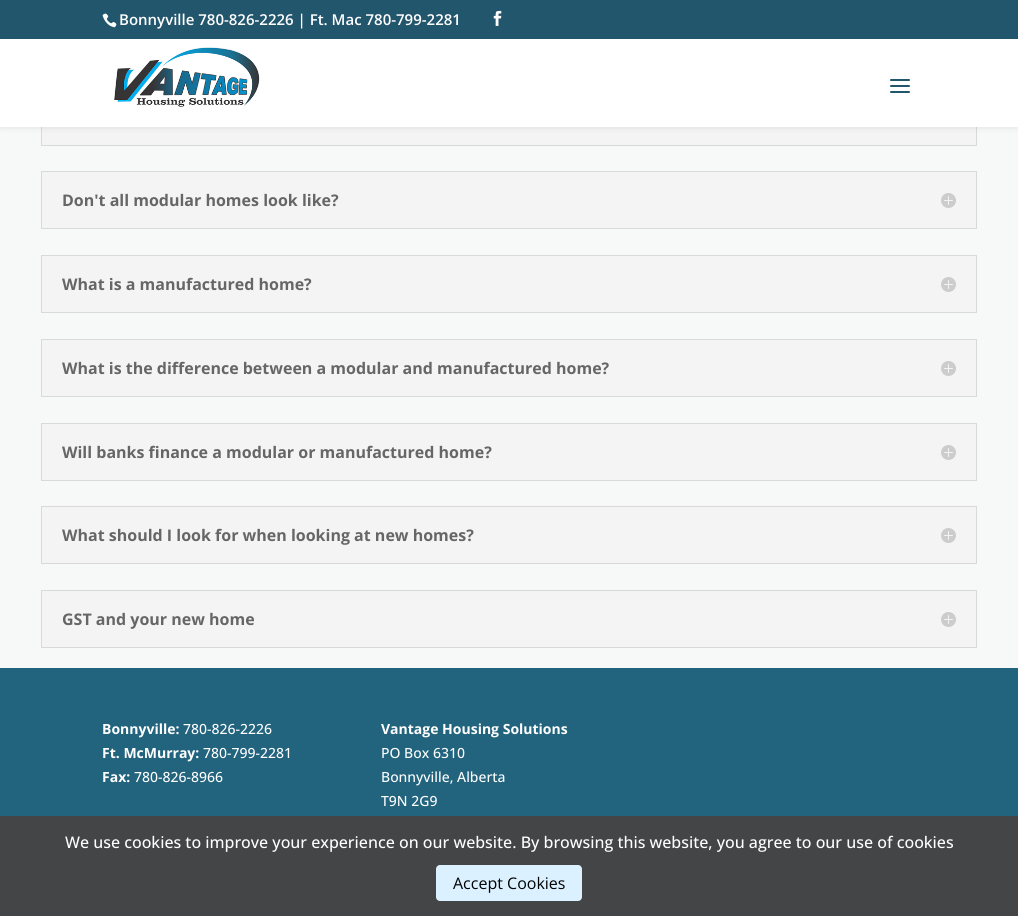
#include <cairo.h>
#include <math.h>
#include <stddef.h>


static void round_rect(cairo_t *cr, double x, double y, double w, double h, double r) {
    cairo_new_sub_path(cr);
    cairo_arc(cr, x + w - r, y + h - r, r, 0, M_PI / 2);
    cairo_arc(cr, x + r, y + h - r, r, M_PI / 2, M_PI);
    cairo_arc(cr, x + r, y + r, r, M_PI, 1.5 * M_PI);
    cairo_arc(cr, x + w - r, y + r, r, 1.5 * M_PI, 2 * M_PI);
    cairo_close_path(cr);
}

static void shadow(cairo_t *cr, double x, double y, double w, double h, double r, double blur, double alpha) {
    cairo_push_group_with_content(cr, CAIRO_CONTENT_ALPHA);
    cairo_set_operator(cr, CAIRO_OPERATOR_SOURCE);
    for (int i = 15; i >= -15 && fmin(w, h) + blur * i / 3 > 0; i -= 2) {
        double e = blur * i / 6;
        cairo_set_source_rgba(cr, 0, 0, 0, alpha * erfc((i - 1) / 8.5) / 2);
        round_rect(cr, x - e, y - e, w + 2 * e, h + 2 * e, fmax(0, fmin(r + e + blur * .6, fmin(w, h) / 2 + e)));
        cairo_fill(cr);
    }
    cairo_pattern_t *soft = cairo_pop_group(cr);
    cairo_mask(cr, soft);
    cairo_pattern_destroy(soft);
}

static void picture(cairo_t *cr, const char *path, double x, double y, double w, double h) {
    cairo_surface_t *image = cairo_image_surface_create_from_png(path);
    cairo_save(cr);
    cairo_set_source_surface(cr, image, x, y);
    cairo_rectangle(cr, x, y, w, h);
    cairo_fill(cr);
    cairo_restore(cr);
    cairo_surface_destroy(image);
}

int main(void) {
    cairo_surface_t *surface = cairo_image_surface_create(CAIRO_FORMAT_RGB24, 1018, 916);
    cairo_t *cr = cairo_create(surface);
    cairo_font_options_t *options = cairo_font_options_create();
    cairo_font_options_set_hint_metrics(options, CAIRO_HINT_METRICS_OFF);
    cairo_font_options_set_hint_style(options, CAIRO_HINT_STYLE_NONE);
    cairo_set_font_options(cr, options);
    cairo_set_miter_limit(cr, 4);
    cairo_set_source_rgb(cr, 0.133, 0.392, 0.494);
    cairo_paint(cr);
    cairo_set_source_rgb(cr, 0.965, 0.969, 0.969);
    cairo_rectangle(cr, 0, 127, 1018, 541);
    cairo_fill(cr);
    cairo_set_source_rgb(cr, 0.957, 0.957, 0.957);
    cairo_rectangle(cr, 42, 127, 934, 18);
    cairo_fill(cr);
    cairo_rectangle(cr, 41.5, 88.5, 935, 57);
    cairo_set_source_rgb(cr, 0.851, 0.851, 0.851);
    cairo_set_line_width(cr, 1);
    cairo_stroke(cr);
    cairo_set_source_rgb(cr, 0, 0, 0);
    shadow(cr, 0, 39, 1018, 88, 0, 3.5, 0.1);
    cairo_set_source_rgb(cr, 0.133, 0.337, 0.427);
    cairo_rectangle(cr, 0, 0, 1018, 39);
    cairo_fill(cr);
    picture(cr, "img1.png", 102, 13, 15, 15);
    cairo_select_font_face(cr, "Open Sans SemiBold", CAIRO_FONT_SLANT_NORMAL, CAIRO_FONT_WEIGHT_NORMAL);
    cairo_set_font_size(cr, 15);
    cairo_set_source_rgb(cr, 1, 1, 1);
    cairo_move_to(cr, 119, 25);
    cairo_show_text(cr, "Bonnyville 780-826-2226 | Ft. Mac 780-799-2281");
    picture(cr, "img2.png", 493, 10, 9, 16);
    cairo_rectangle(cr, 0, 39, 1018, 88);
    cairo_fill(cr);
    picture(cr, "img3.png", 114, 47, 146, 60);
    picture(cr, "img4.png", 890, 79, 20, 14);
    cairo_set_source_rgb(cr, 0.957, 0.957, 0.957);
    cairo_rectangle(cr, 41.5, 171.5, 935, 57);
    cairo_fill_preserve(cr);
    cairo_set_source_rgb(cr, 0.851, 0.851, 0.851);
    cairo_stroke(cr);
    cairo_select_font_face(cr, "Open Sans", CAIRO_FONT_SLANT_NORMAL, CAIRO_FONT_WEIGHT_BOLD);
    cairo_set_font_size(cr, 16);
    cairo_set_source_rgb(cr, 0.4, 0.4, 0.4);
    cairo_move_to(cr, 62, 206);
    cairo_show_text(cr, "Don't all modular homes look like?");
    picture(cr, "img5.png", 941, 193, 15, 15);
    cairo_set_source_rgb(cr, 0.957, 0.957, 0.957);
    cairo_rectangle(cr, 41.5, 255.5, 935, 57);
    cairo_fill_preserve(cr);
    cairo_set_source_rgb(cr, 0.851, 0.851, 0.851);
    cairo_stroke(cr);
    cairo_set_source_rgb(cr, 0.4, 0.4, 0.4);
    cairo_move_to(cr, 62, 290);
    cairo_show_text(cr, "What is a manufactured home?");
    picture(cr, "img5.png", 941, 277, 15, 15);
    cairo_set_source_rgb(cr, 0.957, 0.957, 0.957);
    cairo_rectangle(cr, 41.5, 339.5, 935, 57);
    cairo_fill_preserve(cr);
    cairo_set_source_rgb(cr, 0.851, 0.851, 0.851);
    cairo_stroke(cr);
    cairo_set_source_rgb(cr, 0.4, 0.4, 0.4);
    cairo_move_to(cr, 62, 374);
    cairo_show_text(cr, "What is the difference between a modular and manufactured home?");
    picture(cr, "img5.png", 941, 361, 15, 15);
    cairo_set_source_rgb(cr, 0.957, 0.957, 0.957);
    cairo_rectangle(cr, 41.5, 423.5, 935, 57);
    cairo_fill_preserve(cr);
    cairo_set_source_rgb(cr, 0.851, 0.851, 0.851);
    cairo_stroke(cr);
    cairo_set_source_rgb(cr, 0.4, 0.4, 0.4);
    cairo_move_to(cr, 62, 458);
    cairo_show_text(cr, "Will banks finance a modular or manufactured home?");
    picture(cr, "img5.png", 941, 445, 15, 15);
    cairo_set_source_rgb(cr, 0.957, 0.957, 0.957);
    cairo_rectangle(cr, 41.5, 506.5, 935, 57);
    cairo_fill_preserve(cr);
    cairo_set_source_rgb(cr, 0.851, 0.851, 0.851);
    cairo_stroke(cr);
    cairo_set_source_rgb(cr, 0.4, 0.4, 0.4);
    cairo_move_to(cr, 62, 541);
    cairo_show_text(cr, "What should I look for when looking at new homes?");
    picture(cr, "img5.png", 941, 528, 15, 15);
    cairo_set_source_rgb(cr, 0.957, 0.957, 0.957);
    cairo_rectangle(cr, 41.5, 590.5, 935, 57);
    cairo_fill_preserve(cr);
    cairo_set_source_rgb(cr, 0.851, 0.851, 0.851);
    cairo_stroke(cr);
    cairo_set_source_rgb(cr, 0.4, 0.4, 0.4);
    cairo_move_to(cr, 62, 625);
    cairo_show_text(cr, "GST and your new home");
    picture(cr, "img5.png", 941, 612, 15, 15);
    cairo_set_font_size(cr, 14);
    cairo_set_source_rgb(cr, 1, 1, 1);
    cairo_move_to(cr, 102, 734);
    cairo_show_text(cr, "Bonnyville:");
    cairo_select_font_face(cr, "Open Sans Medium", CAIRO_FONT_SLANT_NORMAL, CAIRO_FONT_WEIGHT_NORMAL);
    cairo_move_to(cr, 183, 734);
    cairo_show_text(cr, "780-826-2226");
    cairo_select_font_face(cr, "Open Sans", CAIRO_FONT_SLANT_NORMAL, CAIRO_FONT_WEIGHT_BOLD);
    cairo_move_to(cr, 102, 758);
    cairo_show_text(cr, "Ft. McMurray:");
    cairo_select_font_face(cr, "Open Sans Medium", CAIRO_FONT_SLANT_NORMAL, CAIRO_FONT_WEIGHT_NORMAL);
    cairo_move_to(cr, 203, 758);
    cairo_show_text(cr, "780-799-2281");
    cairo_select_font_face(cr, "Open Sans", CAIRO_FONT_SLANT_NORMAL, CAIRO_FONT_WEIGHT_BOLD);
    cairo_move_to(cr, 102, 782);
    cairo_show_text(cr, "Fax:");
    cairo_select_font_face(cr, "Open Sans Medium", CAIRO_FONT_SLANT_NORMAL, CAIRO_FONT_WEIGHT_NORMAL);
    cairo_move_to(cr, 134, 782);
    cairo_show_text(cr, "780-826-8966");
    cairo_select_font_face(cr, "Open Sans", CAIRO_FONT_SLANT_NORMAL, CAIRO_FONT_WEIGHT_BOLD);
    cairo_move_to(cr, 381, 734);
    cairo_show_text(cr, "Vantage Housing Solutions");
    cairo_select_font_face(cr, "Open Sans Medium", CAIRO_FONT_SLANT_NORMAL, CAIRO_FONT_WEIGHT_NORMAL);
    cairo_move_to(cr, 381, 758);
    cairo_show_text(cr, "PO Box 6310");
    cairo_move_to(cr, 381, 782);
    cairo_show_text(cr, "Bonnyville, Alberta");
    cairo_move_to(cr, 381, 806);
    cairo_show_text(cr, "T9N 2G9");
    cairo_set_source_rgb(cr, 0.267, 0.271, 0.275);
    cairo_rectangle(cr, 0, 816, 1018, 100);
    cairo_fill(cr);
    cairo_set_font_size(cr, 16);
    cairo_set_source_rgb(cr, 1, 1, 1);
    cairo_move_to(cr, 65, 848);
    cairo_show_text(cr, "We use cookies to improve your experience on our website. By browsing this website, you agree to our use of cookies");
    cairo_set_source_rgb(cr, 0.863, 0.945, 1);
    round_rect(cr, 436, 865, 146, 36, 4);
    cairo_fill(cr);
    cairo_select_font_face(cr, "Open Sans", CAIRO_FONT_SLANT_NORMAL, CAIRO_FONT_WEIGHT_NORMAL);
    cairo_set_source_rgb(cr, 0, 0, 0);
    cairo_move_to(cr, 453, 889);
    cairo_show_text(cr, "Accept Cookies");
    cairo_surface_write_to_png(surface, "page.png");
    cairo_font_options_destroy(options);
    cairo_destroy(cr);
    cairo_surface_destroy(surface);
    return 0;
}
